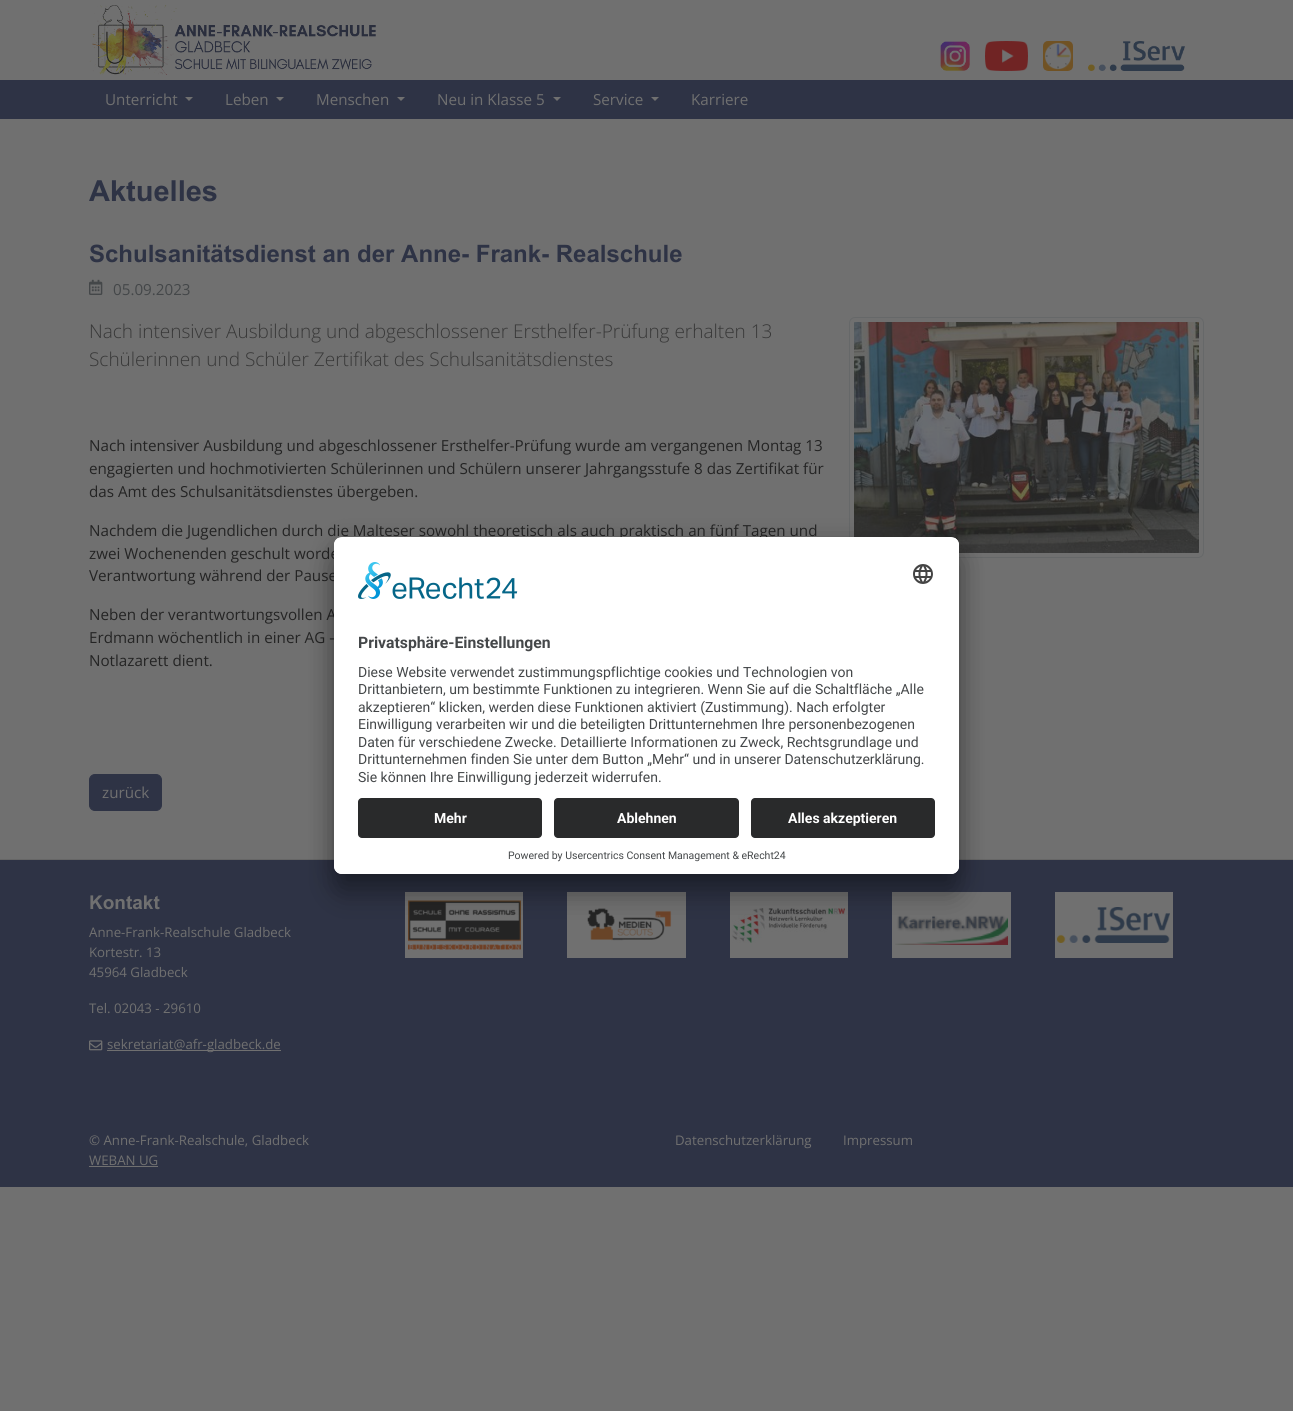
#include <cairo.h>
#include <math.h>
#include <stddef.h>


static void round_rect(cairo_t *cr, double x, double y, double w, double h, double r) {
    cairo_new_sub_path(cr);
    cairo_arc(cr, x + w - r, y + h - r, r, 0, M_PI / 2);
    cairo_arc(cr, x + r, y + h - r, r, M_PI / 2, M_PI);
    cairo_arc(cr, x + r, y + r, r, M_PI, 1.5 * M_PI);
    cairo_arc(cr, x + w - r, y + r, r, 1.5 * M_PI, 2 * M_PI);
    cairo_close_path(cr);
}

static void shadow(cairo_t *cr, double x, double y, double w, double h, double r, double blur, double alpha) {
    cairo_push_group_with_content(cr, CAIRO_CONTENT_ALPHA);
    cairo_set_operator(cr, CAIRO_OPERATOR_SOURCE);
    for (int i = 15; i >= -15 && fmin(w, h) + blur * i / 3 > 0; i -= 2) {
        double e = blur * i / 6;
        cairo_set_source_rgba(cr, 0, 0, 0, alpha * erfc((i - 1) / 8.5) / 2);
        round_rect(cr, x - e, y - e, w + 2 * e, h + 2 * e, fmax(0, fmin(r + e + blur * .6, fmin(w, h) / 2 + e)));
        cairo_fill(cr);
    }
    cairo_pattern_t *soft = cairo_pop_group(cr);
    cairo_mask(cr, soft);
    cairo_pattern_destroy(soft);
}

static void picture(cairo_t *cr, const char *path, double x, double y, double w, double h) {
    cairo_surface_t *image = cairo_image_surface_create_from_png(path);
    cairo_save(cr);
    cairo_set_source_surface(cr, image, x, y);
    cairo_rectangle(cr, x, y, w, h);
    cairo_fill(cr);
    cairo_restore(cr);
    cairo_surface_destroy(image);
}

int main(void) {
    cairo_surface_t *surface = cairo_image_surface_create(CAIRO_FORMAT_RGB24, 1293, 1411);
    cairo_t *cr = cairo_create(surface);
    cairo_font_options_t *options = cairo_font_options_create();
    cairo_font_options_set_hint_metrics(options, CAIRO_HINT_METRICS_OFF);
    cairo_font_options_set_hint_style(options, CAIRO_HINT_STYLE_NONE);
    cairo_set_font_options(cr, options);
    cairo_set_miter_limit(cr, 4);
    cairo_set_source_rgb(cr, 0.439, 0.439, 0.439);
    cairo_paint(cr);
    cairo_set_source_rgb(cr, 0.18, 0.2, 0.271);
    cairo_rectangle(cr, 0, 80, 1293, 39);
    cairo_fill(cr);
    picture(cr, "img1.png", 89, 5, 287, 70);
    picture(cr, "img2.png", 940, 41, 30, 30);
    picture(cr, "img3.png", 985, 41, 43, 30);
    picture(cr, "img4.png", 1043, 41, 30, 30);
    picture(cr, "img5.png", 1088, 41, 97, 30);
    cairo_select_font_face(cr, "Open Sans", CAIRO_FONT_SLANT_NORMAL, CAIRO_FONT_WEIGHT_NORMAL);
    cairo_set_font_size(cr, 15.2);
    cairo_set_source_rgb(cr, 0.439, 0.439, 0.439);
    cairo_move_to(cr, 105, 105);
    cairo_show_text(cr, "Unterricht");
    cairo_new_path(cr);
    cairo_move_to(cr, 185, 97);
    cairo_line_to(cr, 193, 97);
    cairo_line_to(cr, 189, 101);
    cairo_close_path(cr);
    cairo_fill(cr);
    cairo_move_to(cr, 225, 105);
    cairo_show_text(cr, "Leben");
    cairo_new_path(cr);
    cairo_move_to(cr, 276, 97);
    cairo_line_to(cr, 284, 97);
    cairo_line_to(cr, 280, 101);
    cairo_close_path(cr);
    cairo_fill(cr);
    cairo_move_to(cr, 316, 105);
    cairo_show_text(cr, "Menschen");
    cairo_new_path(cr);
    cairo_move_to(cr, 397, 97);
    cairo_line_to(cr, 405, 97);
    cairo_line_to(cr, 401, 101);
    cairo_close_path(cr);
    cairo_fill(cr);
    cairo_move_to(cr, 437, 105);
    cairo_show_text(cr, "Neu in Klasse 5");
    cairo_new_path(cr);
    cairo_move_to(cr, 553, 97);
    cairo_line_to(cr, 561, 97);
    cairo_line_to(cr, 557, 101);
    cairo_close_path(cr);
    cairo_fill(cr);
    cairo_move_to(cr, 593, 105);
    cairo_show_text(cr, "Service");
    cairo_new_path(cr);
    cairo_move_to(cr, 651, 97);
    cairo_line_to(cr, 659, 97);
    cairo_line_to(cr, 655, 101);
    cairo_close_path(cr);
    cairo_fill(cr);
    cairo_move_to(cr, 691, 105);
    cairo_show_text(cr, "Karriere");
    cairo_select_font_face(cr, "Arial", CAIRO_FONT_SLANT_NORMAL, CAIRO_FONT_WEIGHT_BOLD);
    cairo_set_font_size(cr, 29);
    cairo_set_source_rgb(cr, 0.18, 0.2, 0.271);
    cairo_move_to(cr, 89, 201);
    cairo_show_text(cr, "Aktuelles");
    cairo_set_font_size(cr, 24);
    cairo_move_to(cr, 89, 262);
    cairo_show_text(cr, "Schulsanitätsdienst an der Anne- Frank- Realschule");
    picture(cr, "img6.png", 89, 279, 14, 16);
    cairo_select_font_face(cr, "Open Sans", CAIRO_FONT_SLANT_NORMAL, CAIRO_FONT_WEIGHT_NORMAL);
    cairo_set_font_size(cr, 15.2);
    cairo_set_source_rgb(cr, 0.267, 0.278, 0.286);
    cairo_move_to(cr, 113, 295);
    cairo_show_text(cr, "05.09.2023");
    cairo_select_font_face(cr, "Open Sans Light", CAIRO_FONT_SLANT_NORMAL, CAIRO_FONT_WEIGHT_NORMAL);
    cairo_set_font_size(cr, 19);
    cairo_set_source_rgb(cr, 0.22, 0.22, 0.22);
    cairo_move_to(cr, 89, 338);
    cairo_show_text(cr, "Nach intensiver Ausbildung und abgeschlossener Ersthelfer-Prüfung erhalten 13");
    cairo_move_to(cr, 89, 366);
    cairo_show_text(cr, "Schülerinnen und Schüler Zertifikat des Schulsanitätsdienstes");
    cairo_select_font_face(cr, "Open Sans", CAIRO_FONT_SLANT_NORMAL, CAIRO_FONT_WEIGHT_NORMAL);
    cairo_set_font_size(cr, 15.2);
    cairo_set_source_rgb(cr, 0.141, 0.141, 0.141);
    cairo_move_to(cr, 89, 451);
    cairo_show_text(cr, "Nach intensiver Ausbildung und abgeschlossener Ersthelfer-Prüfung wurde am vergangenen Montag 13");
    cairo_move_to(cr, 89, 474);
    cairo_show_text(cr, "engagierten und hochmotivierten Schülerinnen und Schülern unserer Jahrgangsstufe 8 das Zertifikat für");
    cairo_move_to(cr, 89, 497);
    cairo_show_text(cr, "das Amt des Schulsanitätsdienstes übergeben.");
    cairo_move_to(cr, 89, 536);
    cairo_show_text(cr, "Nachdem die Jugendlichen durch die Malteser sowohl theoretisch als auch praktisch an fünf Tagen und");
    cairo_move_to(cr, 89, 559);
    cairo_show_text(cr, "zwei Wochenenden geschult worde");
    cairo_move_to(cr, 89, 581);
    cairo_show_text(cr, "Verantwortung während der Pause");
    cairo_move_to(cr, 89, 620);
    cairo_show_text(cr, "Neben der verantwortungsvollen A");
    cairo_move_to(cr, 89, 643);
    cairo_show_text(cr, "Erdmann wöchentlich in einer AG –");
    cairo_move_to(cr, 89, 666);
    cairo_show_text(cr, "Notlazarett dient.");
    round_rect(cr, 849.5, 317.5, 354, 240, 5.5);
    cairo_set_source_rgb(cr, 0.4, 0.408, 0.412);
    cairo_set_line_width(cr, 1);
    cairo_stroke(cr);
    picture(cr, "img7.png", 854, 322, 345, 231);
    cairo_set_source_rgb(cr, 0.18, 0.2, 0.271);
    round_rect(cr, 89.5, 774.5, 72, 36, 5.5);
    cairo_fill_preserve(cr);
    cairo_stroke(cr);
    cairo_set_source_rgb(cr, 0.439, 0.439, 0.439);
    cairo_move_to(cr, 102, 798);
    cairo_show_text(cr, "zurück");
    cairo_set_source_rgb(cr, 0.18, 0.2, 0.271);
    cairo_rectangle(cr, 0, 860, 1293, 327);
    cairo_fill(cr);
    cairo_set_source_rgb(cr, 0.4, 0.4, 0.4);
    cairo_rectangle(cr, 0, 859, 1293, 1);
    cairo_fill(cr);
    cairo_select_font_face(cr, "Arial", CAIRO_FONT_SLANT_NORMAL, CAIRO_FONT_WEIGHT_BOLD);
    cairo_set_font_size(cr, 19);
    cairo_set_source_rgb(cr, 0.439, 0.439, 0.439);
    cairo_move_to(cr, 89, 909);
    cairo_show_text(cr, "Kontakt");
    cairo_select_font_face(cr, "Open Sans", CAIRO_FONT_SLANT_NORMAL, CAIRO_FONT_WEIGHT_NORMAL);
    cairo_set_font_size(cr, 13.25);
    cairo_move_to(cr, 89, 937);
    cairo_show_text(cr, "Anne-Frank-Realschule Gladbeck");
    cairo_move_to(cr, 89, 957);
    cairo_show_text(cr, "Kortestr. 13");
    cairo_move_to(cr, 89, 977);
    cairo_show_text(cr, "45964 Gladbeck");
    cairo_move_to(cr, 89, 1013);
    cairo_show_text(cr, "Tel. 02043 - 29610");
    picture(cr, "img8.png", 89, 1040, 14, 11);
    cairo_rectangle(cr, 107, 1050, 174, 1);
    cairo_fill(cr);
    cairo_move_to(cr, 107, 1049);
    cairo_show_text(cr, "sekretariat@afr-gladbeck.de");
    cairo_rectangle(cr, 405, 892, 118, 66);
    cairo_fill(cr);
    picture(cr, "img9.png", 408, 900, 113, 50);
    cairo_rectangle(cr, 567, 892, 119, 66);
    cairo_fill(cr);
    picture(cr, "img10.png", 587, 908, 85, 33);
    cairo_rectangle(cr, 730, 892, 118, 66);
    cairo_fill(cr);
    picture(cr, "img11.png", 732, 908, 113, 35);
    cairo_rectangle(cr, 892, 892, 119, 66);
    cairo_fill(cr);
    picture(cr, "img12.png", 895, 915, 113, 30);
    cairo_rectangle(cr, 1055, 892, 118, 66);
    cairo_fill(cr);
    picture(cr, "img13.png", 1057, 907, 113, 36);
    cairo_move_to(cr, 89, 1145);
    cairo_show_text(cr, "© Anne-Frank-Realschule, Gladbeck");
    cairo_move_to(cr, 89, 1165);
    cairo_show_text(cr, "WEBAN UG");
    cairo_rectangle(cr, 89, 1166, 69, 1);
    cairo_fill(cr);
    cairo_move_to(cr, 675, 1145);
    cairo_show_text(cr, "Datenschutzerklärung");
    cairo_move_to(cr, 843, 1145);
    cairo_show_text(cr, "Impressum");
    cairo_set_source_rgb(cr, 0, 0, 0);
    shadow(cr, 334, 557, 625, 337, 8, 14, 0.3);
    shadow(cr, 334, 542, 625, 337, 8, 13, 0.22);
    cairo_set_source_rgb(cr, 1, 1, 1);
    round_rect(cr, 334, 537, 625, 337, 8);
    cairo_fill(cr);
    cairo_save(cr);
    round_rect(cr, 334, 537, 625, 337, 8);
    cairo_clip(cr);
    cairo_new_path(cr);
    cairo_move_to(cr, 342, 537);
    cairo_line_to(cr, 951, 537);
    cairo_curve_to(cr, 955.5, 537, 959, 540.5, 959, 545);
    cairo_line_to(cr, 959, 790);
    cairo_line_to(cr, 334, 790);
    cairo_line_to(cr, 334, 545);
    cairo_curve_to(cr, 334, 540.5, 337.5, 537, 342, 537);
    cairo_close_path(cr);
    cairo_clip(cr);
    cairo_rectangle(cr, 334, 538, 625, 252);
    cairo_fill(cr);
    cairo_restore(cr);
    picture(cr, "img14.png", 358, 562, 160, 37);
    picture(cr, "img15.png", 913, 564, 20, 20);
    cairo_select_font_face(cr, "Roboto", CAIRO_FONT_SLANT_NORMAL, CAIRO_FONT_WEIGHT_BOLD);
    cairo_set_font_size(cr, 15.75);
    cairo_set_source_rgb(cr, 0.267, 0.278, 0.286);
    cairo_move_to(cr, 358, 648);
    cairo_show_text(cr, "Privatsphäre-Einstellungen");
    cairo_select_font_face(cr, "Roboto", CAIRO_FONT_SLANT_NORMAL, CAIRO_FONT_WEIGHT_NORMAL);
    cairo_set_font_size(cr, 14);
    cairo_move_to(cr, 358, 677);
    cairo_show_text(cr, "Diese Website verwendet zustimmungspflichtige cookies und Technologien von");
    cairo_move_to(cr, 358, 694);
    cairo_show_text(cr, "Drittanbietern, um bestimmte Funktionen zu integrieren. Wenn Sie auf die Schaltfläche „Alle");
    cairo_move_to(cr, 358, 712);
    cairo_show_text(cr, "akzeptieren“ klicken, werden diese Funktionen aktiviert (Zustimmung). Nach erfolgter");
    cairo_move_to(cr, 358, 729);
    cairo_show_text(cr, "Einwilligung verarbeiten wir und die beteiligten Drittunternehmen Ihre personenbezogenen");
    cairo_move_to(cr, 358, 747);
    cairo_show_text(cr, "Daten für verschiedene Zwecke. Detaillierte Informationen zu Zweck, Rechtsgrundlage und");
    cairo_move_to(cr, 358, 764);
    cairo_show_text(cr, "Drittunternehmen finden Sie unter dem Button „Mehr“ und in unserer Datenschutzerklärung.");
    cairo_move_to(cr, 358, 782);
    cairo_show_text(cr, "Sie können Ihre Einwilligung jederzeit widerrufen.");
    cairo_set_source_rgb(cr, 1, 1, 1);
    cairo_new_path(cr);
    cairo_move_to(cr, 334, 790);
    cairo_line_to(cr, 959, 790);
    cairo_line_to(cr, 959, 866);
    cairo_curve_to(cr, 959, 870.5, 955.5, 874, 951, 874);
    cairo_line_to(cr, 342, 874);
    cairo_curve_to(cr, 337.5, 874, 334, 870.5, 334, 866);
    cairo_close_path(cr);
    cairo_fill(cr);
    cairo_set_source_rgb(cr, 0.161, 0.165, 0.169);
    round_rect(cr, 358, 798, 184, 40, 4);
    cairo_fill(cr);
    cairo_select_font_face(cr, "Roboto", CAIRO_FONT_SLANT_NORMAL, CAIRO_FONT_WEIGHT_BOLD);
    cairo_set_source_rgb(cr, 1, 1, 1);
    cairo_move_to(cr, 434, 823);
    cairo_show_text(cr, "Mehr");
    cairo_set_source_rgb(cr, 0.161, 0.165, 0.169);
    round_rect(cr, 554, 798, 185, 40, 4);
    cairo_fill(cr);
    cairo_set_source_rgb(cr, 1, 1, 1);
    cairo_move_to(cr, 617, 823);
    cairo_show_text(cr, "Ablehnen");
    cairo_set_source_rgb(cr, 0.161, 0.165, 0.169);
    round_rect(cr, 751, 798, 184, 40, 4);
    cairo_fill(cr);
    cairo_set_source_rgb(cr, 1, 1, 1);
    cairo_move_to(cr, 788, 823);
    cairo_show_text(cr, "Alles akzeptieren");
    cairo_select_font_face(cr, "Roboto", CAIRO_FONT_SLANT_NORMAL, CAIRO_FONT_WEIGHT_NORMAL);
    cairo_set_font_size(cr, 10.5);
    cairo_set_source_rgb(cr, 0.267, 0.278, 0.286);
    cairo_move_to(cr, 508, 859);
    cairo_show_text(cr, "Powered by Usercentrics Consent Management & eRecht24");
    cairo_surface_write_to_png(surface, "page.png");
    cairo_font_options_destroy(options);
    cairo_destroy(cr);
    cairo_surface_destroy(surface);
    return 0;
}
